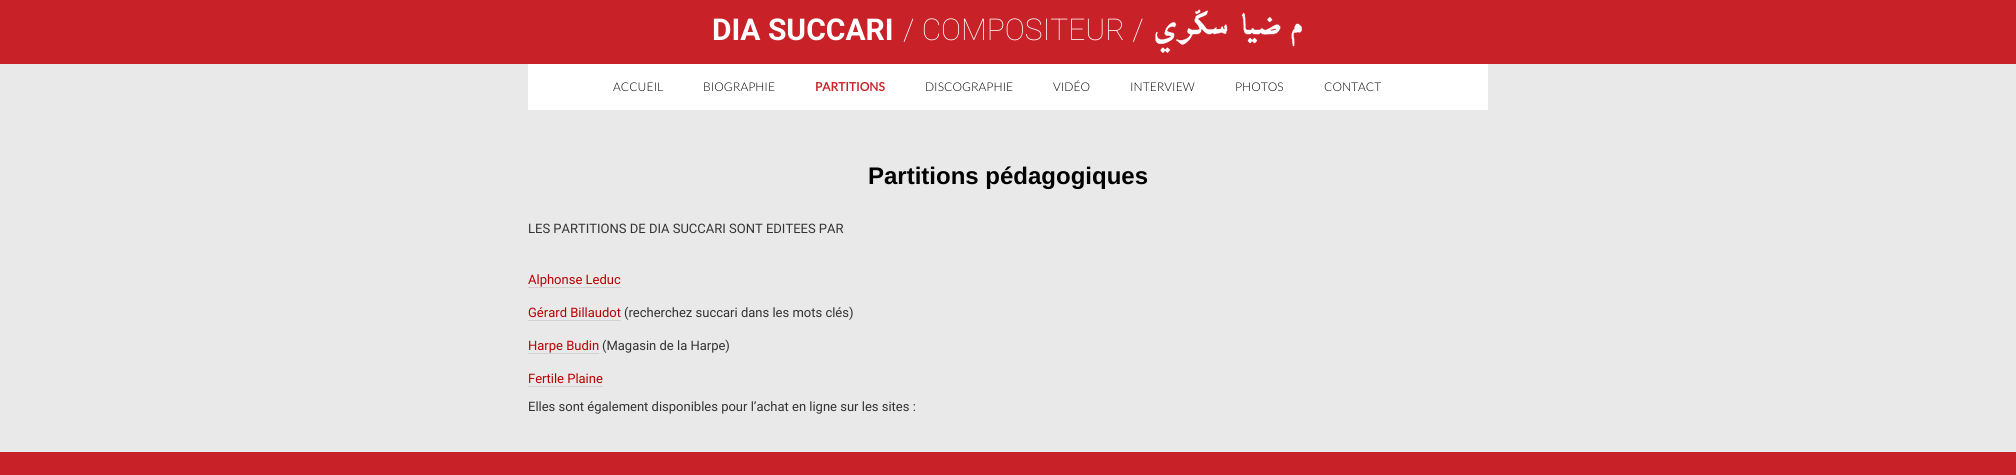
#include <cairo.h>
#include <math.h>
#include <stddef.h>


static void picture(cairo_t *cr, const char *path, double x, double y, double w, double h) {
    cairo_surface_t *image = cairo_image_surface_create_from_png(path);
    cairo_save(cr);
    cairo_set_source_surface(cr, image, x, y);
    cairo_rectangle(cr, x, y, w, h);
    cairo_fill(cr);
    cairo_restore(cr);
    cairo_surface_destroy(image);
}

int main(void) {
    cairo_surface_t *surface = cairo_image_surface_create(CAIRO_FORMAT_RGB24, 2016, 475);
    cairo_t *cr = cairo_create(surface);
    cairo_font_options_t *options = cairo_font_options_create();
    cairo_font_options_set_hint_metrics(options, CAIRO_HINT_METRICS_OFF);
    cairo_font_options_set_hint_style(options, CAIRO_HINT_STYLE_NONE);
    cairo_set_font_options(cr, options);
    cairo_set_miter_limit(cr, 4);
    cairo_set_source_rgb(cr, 0.914, 0.914, 0.914);
    cairo_paint(cr);
    cairo_set_source_rgb(cr, 0.784, 0.129, 0.157);
    cairo_rectangle(cr, 0, 0, 2016, 64);
    cairo_fill(cr);
    cairo_select_font_face(cr, "Roboto", CAIRO_FONT_SLANT_NORMAL, CAIRO_FONT_WEIGHT_BOLD);
    cairo_set_font_size(cr, 30);
    cairo_set_source_rgb(cr, 1, 1, 1);
    cairo_move_to(cr, 712, 40);
    cairo_show_text(cr, "DIA SUCCARI");
    cairo_select_font_face(cr, "Roboto Thin", CAIRO_FONT_SLANT_NORMAL, CAIRO_FONT_WEIGHT_NORMAL);
    cairo_move_to(cr, 903, 40);
    cairo_show_text(cr, "/ COMPOSITEUR /");
    picture(cr, "img1.png", 1155, 9, 147, 44);
    cairo_rectangle(cr, 528, 64, 960, 46);
    cairo_fill(cr);
    cairo_select_font_face(cr, "Lato Light", CAIRO_FONT_SLANT_NORMAL, CAIRO_FONT_WEIGHT_NORMAL);
    cairo_set_font_size(cr, 12);
    cairo_set_source_rgb(cr, 0, 0, 0);
    cairo_move_to(cr, 613, 91);
    cairo_show_text(cr, "ACCUEIL");
    cairo_move_to(cr, 703, 91);
    cairo_show_text(cr, "BIOGRAPHIE");
    cairo_select_font_face(cr, "Lato", CAIRO_FONT_SLANT_NORMAL, CAIRO_FONT_WEIGHT_BOLD);
    cairo_set_source_rgb(cr, 0.784, 0.129, 0.157);
    cairo_move_to(cr, 815, 91);
    cairo_show_text(cr, "PARTITIONS");
    cairo_select_font_face(cr, "Lato Light", CAIRO_FONT_SLANT_NORMAL, CAIRO_FONT_WEIGHT_NORMAL);
    cairo_set_source_rgb(cr, 0, 0, 0);
    cairo_move_to(cr, 925, 91);
    cairo_show_text(cr, "DISCOGRAPHIE");
    cairo_move_to(cr, 1053, 91);
    cairo_show_text(cr, "VIDÉO");
    cairo_move_to(cr, 1130, 91);
    cairo_show_text(cr, "INTERVIEW");
    cairo_move_to(cr, 1235, 91);
    cairo_show_text(cr, "PHOTOS");
    cairo_move_to(cr, 1324, 91);
    cairo_show_text(cr, "CONTACT");
    cairo_select_font_face(cr, "Liberation Sans", CAIRO_FONT_SLANT_NORMAL, CAIRO_FONT_WEIGHT_BOLD);
    cairo_set_font_size(cr, 24);
    cairo_move_to(cr, 868, 184);
    cairo_show_text(cr, "Partitions pédagogiques");
    cairo_select_font_face(cr, "Roboto", CAIRO_FONT_SLANT_NORMAL, CAIRO_FONT_WEIGHT_NORMAL);
    cairo_set_font_size(cr, 13);
    cairo_set_source_rgb(cr, 0.2, 0.2, 0.2);
    cairo_move_to(cr, 528, 233);
    cairo_show_text(cr, "LES PARTITIONS DE DIA SUCCARI SONT EDITEES PAR");
    cairo_set_source_rgb(cr, 0.733, 0, 0);
    cairo_move_to(cr, 528, 284);
    cairo_show_text(cr, "Alphonse Leduc");
    cairo_set_source_rgb(cr, 0.824, 0.824, 0.824);
    cairo_rectangle(cr, 528, 287, 93, 1);
    cairo_fill(cr);
    cairo_set_source_rgb(cr, 0.733, 0, 0);
    cairo_move_to(cr, 528, 317);
    cairo_show_text(cr, "Gérard Billaudot");
    cairo_set_source_rgb(cr, 0.824, 0.824, 0.824);
    cairo_rectangle(cr, 528, 320, 93, 1);
    cairo_fill(cr);
    cairo_set_source_rgb(cr, 0.2, 0.2, 0.2);
    cairo_move_to(cr, 624, 317);
    cairo_show_text(cr, "(recherchez succari dans les mots clés)");
    cairo_set_source_rgb(cr, 0.733, 0, 0);
    cairo_move_to(cr, 528, 350);
    cairo_show_text(cr, "Harpe Budin");
    cairo_set_source_rgb(cr, 0.824, 0.824, 0.824);
    cairo_rectangle(cr, 528, 353, 71, 1);
    cairo_fill(cr);
    cairo_set_source_rgb(cr, 0.2, 0.2, 0.2);
    cairo_move_to(cr, 602, 350);
    cairo_show_text(cr, "(Magasin de la Harpe)");
    cairo_set_source_rgb(cr, 0.733, 0, 0);
    cairo_move_to(cr, 528, 383);
    cairo_show_text(cr, "Fertile Plaine");
    cairo_set_source_rgb(cr, 0.824, 0.824, 0.824);
    cairo_rectangle(cr, 528, 386, 75, 1);
    cairo_fill(cr);
    cairo_set_source_rgb(cr, 0.2, 0.2, 0.2);
    cairo_move_to(cr, 528, 411);
    cairo_show_text(cr, "Elles sont également disponibles pour l’achat en ligne sur les sites :");
    cairo_set_source_rgb(cr, 0.784, 0.129, 0.157);
    cairo_rectangle(cr, 0, 452, 2016, 23);
    cairo_fill(cr);
    cairo_surface_write_to_png(surface, "page.png");
    cairo_font_options_destroy(options);
    cairo_destroy(cr);
    cairo_surface_destroy(surface);
    return 0;
}
